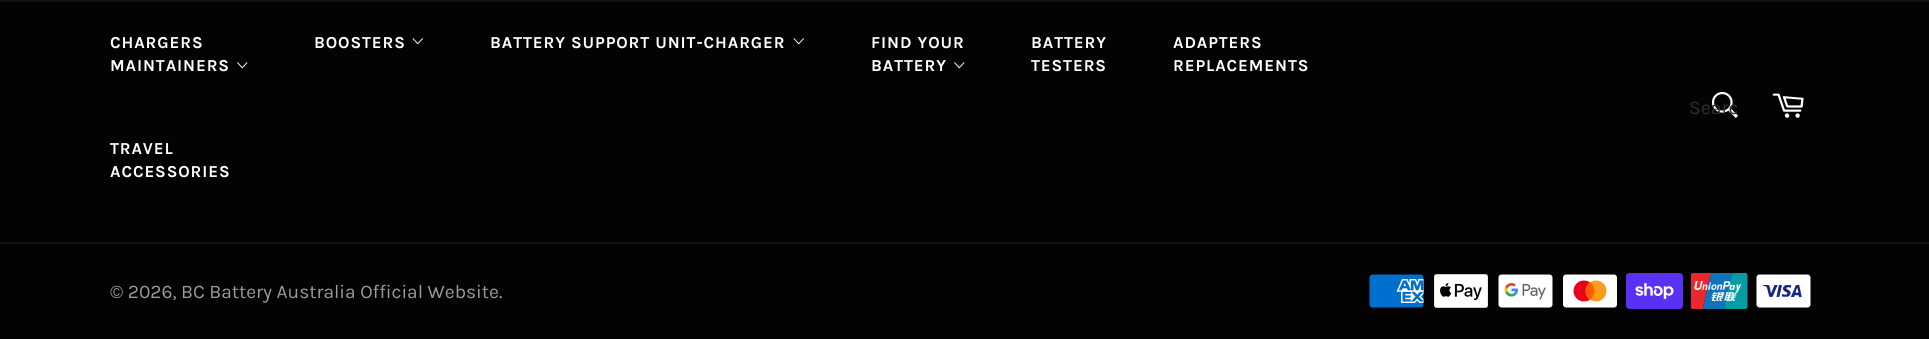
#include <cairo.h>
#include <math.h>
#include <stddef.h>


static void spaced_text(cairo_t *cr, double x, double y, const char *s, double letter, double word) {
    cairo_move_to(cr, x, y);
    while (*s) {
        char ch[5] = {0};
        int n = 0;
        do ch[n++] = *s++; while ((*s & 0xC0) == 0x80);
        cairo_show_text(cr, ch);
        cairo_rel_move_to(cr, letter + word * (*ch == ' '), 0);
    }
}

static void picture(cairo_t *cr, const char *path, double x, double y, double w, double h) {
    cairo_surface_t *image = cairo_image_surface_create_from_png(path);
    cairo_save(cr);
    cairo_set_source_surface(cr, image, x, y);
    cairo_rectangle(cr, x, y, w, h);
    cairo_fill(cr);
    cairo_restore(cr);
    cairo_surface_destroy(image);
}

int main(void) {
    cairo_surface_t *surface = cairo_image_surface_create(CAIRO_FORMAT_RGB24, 1929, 339);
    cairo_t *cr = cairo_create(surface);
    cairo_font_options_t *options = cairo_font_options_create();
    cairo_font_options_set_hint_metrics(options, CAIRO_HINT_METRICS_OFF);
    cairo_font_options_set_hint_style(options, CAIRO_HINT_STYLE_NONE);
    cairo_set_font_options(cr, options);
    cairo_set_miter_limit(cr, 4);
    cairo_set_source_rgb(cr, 0.012, 0.012, 0.012);
    cairo_paint(cr);
    cairo_set_source_rgb(cr, 0.063, 0.063, 0.063);
    cairo_rectangle(cr, 0, 0, 1929, 2);
    cairo_fill(cr);
    cairo_select_font_face(cr, "Karla", CAIRO_FONT_SLANT_NORMAL, CAIRO_FONT_WEIGHT_BOLD);
    cairo_set_font_size(cr, 16.75);
    cairo_set_source_rgb(cr, 1, 1, 1);
    spaced_text(cr, 110, 48, "CHARGERS", 0.9, 0);
    spaced_text(cr, 110, 71, "MAINTAINERS", 0.9, 0);
    picture(cr, "img1.png", 237, 62, 11, 7);
    spaced_text(cr, 314, 48, "BOOSTERS", 0.9, 0);
    picture(cr, "img2.png", 412, 38, 11, 7);
    spaced_text(cr, 490, 48, "BATTERY SUPPORT UNIT-CHARGER", 0.9, 0);
    picture(cr, "img2.png", 793, 38, 11, 7);
    spaced_text(cr, 871, 48, "FIND YOUR", 0.9, 0);
    spaced_text(cr, 871, 71, "BATTERY", 0.9, 0);
    picture(cr, "img1.png", 954, 62, 11, 7);
    spaced_text(cr, 1031, 48, "BATTERY", 0.9, 0);
    spaced_text(cr, 1031, 71, "TESTERS", 0.9, 0);
    spaced_text(cr, 1173, 48, "ADAPTERS", 0.9, 0);
    spaced_text(cr, 1173, 71, "REPLACEMENTS", 0.9, 0);
    spaced_text(cr, 110, 154, "TRAVEL", 0.9, 0);
    spaced_text(cr, 110, 177, "ACCESSORIES", 0.9, 0);
    picture(cr, "img3.png", 1711, 91, 27, 27);
    cairo_save(cr);
    cairo_rectangle(cr, 1689, 96, 48, 23);
    cairo_clip(cr);
    cairo_select_font_face(cr, "Karla", CAIRO_FONT_SLANT_NORMAL, CAIRO_FONT_WEIGHT_NORMAL);
    cairo_set_font_size(cr, 19.5);
    cairo_set_source_rgb(cr, 0.188, 0.188, 0.188);
    cairo_move_to(cr, 1689, 114);
    cairo_show_text(cr, "Searc");
    cairo_restore(cr);
    picture(cr, "img4.png", 1772, 93, 32, 25);
    cairo_set_source_rgb(cr, 0.063, 0.063, 0.063);
    cairo_rectangle(cr, 0, 242, 1929, 2);
    cairo_fill(cr);
    cairo_select_font_face(cr, "Karla", CAIRO_FONT_SLANT_NORMAL, CAIRO_FONT_WEIGHT_NORMAL);
    cairo_set_font_size(cr, 19.2);
    cairo_set_source_rgb(cr, 0.604, 0.604, 0.604);
    cairo_move_to(cr, 110, 298);
    cairo_show_text(cr, "© 2026, BC Battery Australia Official Website.");
    picture(cr, "img5.png", 1369, 274, 55, 34);
    picture(cr, "img6.png", 1434, 274, 54, 34);
    picture(cr, "img7.png", 1498, 274, 55, 34);
    picture(cr, "img8.png", 1563, 274, 54, 34);
    picture(cr, "img9.png", 1626, 273, 57, 36);
    picture(cr, "img10.png", 1691, 273, 57, 36);
    picture(cr, "img11.png", 1756, 274, 55, 34);
    cairo_surface_write_to_png(surface, "page.png");
    cairo_font_options_destroy(options);
    cairo_destroy(cr);
    cairo_surface_destroy(surface);
    return 0;
}
